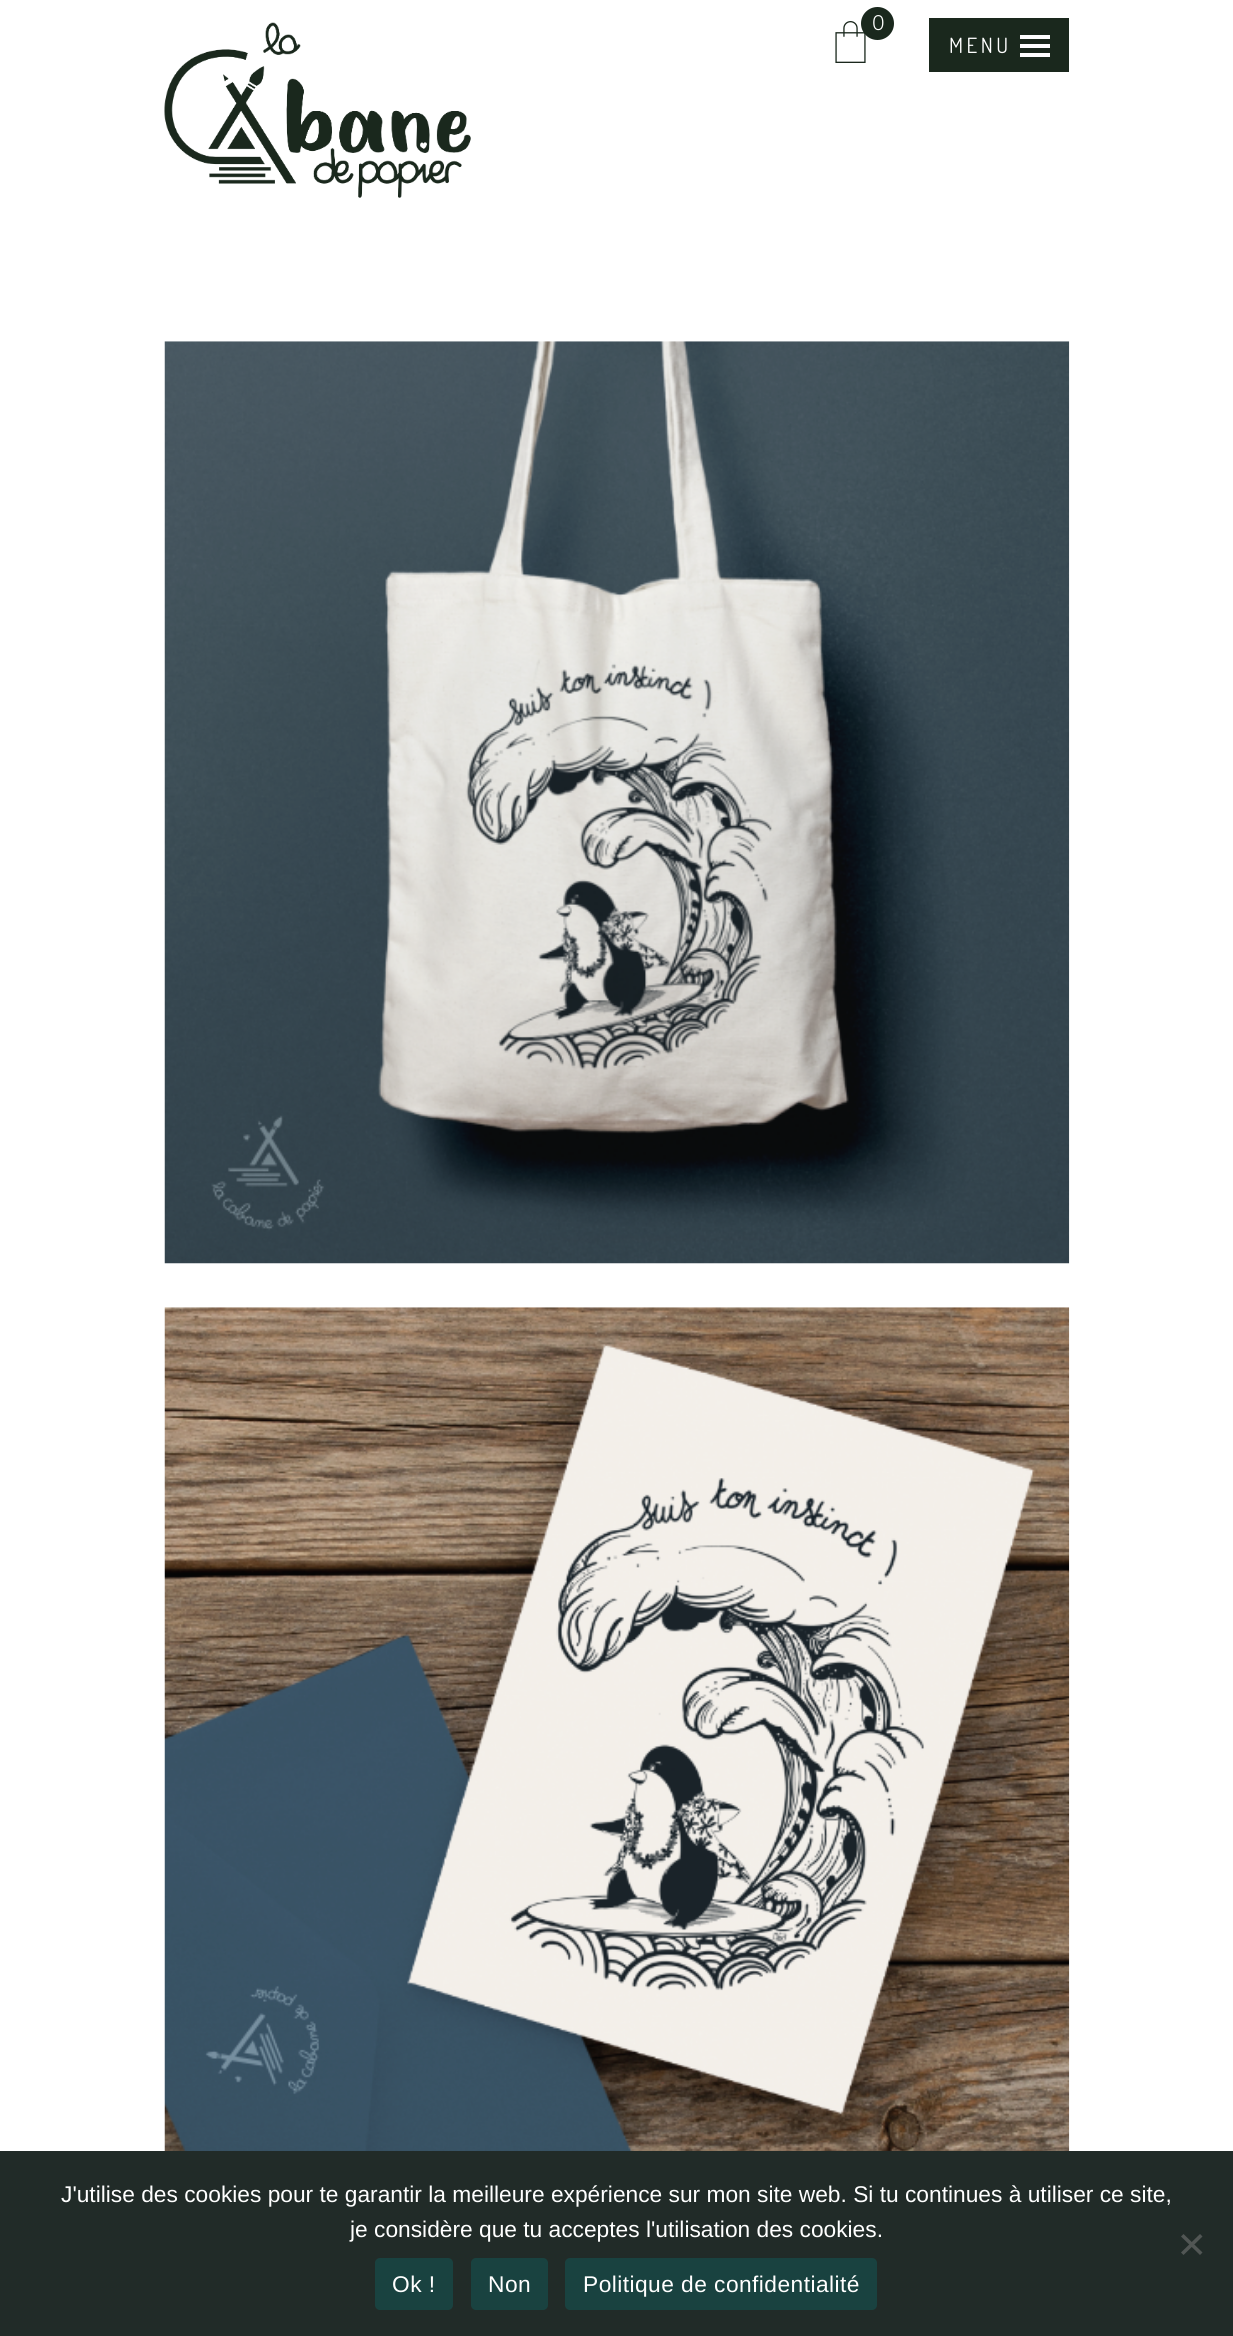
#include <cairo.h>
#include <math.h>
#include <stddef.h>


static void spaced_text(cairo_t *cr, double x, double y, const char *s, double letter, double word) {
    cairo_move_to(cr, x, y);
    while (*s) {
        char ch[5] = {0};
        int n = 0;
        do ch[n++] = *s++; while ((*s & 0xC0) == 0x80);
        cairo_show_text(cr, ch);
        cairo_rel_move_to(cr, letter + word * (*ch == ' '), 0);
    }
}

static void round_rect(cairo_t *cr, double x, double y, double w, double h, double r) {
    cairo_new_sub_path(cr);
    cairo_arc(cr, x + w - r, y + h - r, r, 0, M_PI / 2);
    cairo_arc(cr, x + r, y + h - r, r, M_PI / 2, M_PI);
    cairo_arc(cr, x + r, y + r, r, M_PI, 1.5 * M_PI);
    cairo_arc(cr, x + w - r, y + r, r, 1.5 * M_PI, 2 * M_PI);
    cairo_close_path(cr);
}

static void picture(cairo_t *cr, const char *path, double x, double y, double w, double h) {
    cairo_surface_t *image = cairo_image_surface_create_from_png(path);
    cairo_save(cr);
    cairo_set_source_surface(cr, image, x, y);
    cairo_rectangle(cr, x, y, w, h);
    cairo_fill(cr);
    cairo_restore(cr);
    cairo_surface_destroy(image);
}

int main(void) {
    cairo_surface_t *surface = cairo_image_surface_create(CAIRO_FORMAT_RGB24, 1233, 2336);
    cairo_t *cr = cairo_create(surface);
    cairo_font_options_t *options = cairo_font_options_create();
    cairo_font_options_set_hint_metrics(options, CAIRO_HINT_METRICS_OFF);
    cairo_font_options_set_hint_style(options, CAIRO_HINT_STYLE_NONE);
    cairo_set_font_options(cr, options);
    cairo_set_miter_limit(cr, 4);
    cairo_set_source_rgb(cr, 1, 1, 1);
    cairo_paint(cr);
    picture(cr, "img1.png", 164, 22, 307, 176);
    picture(cr, "img2.png", 835, 21, 31, 42);
    cairo_set_source_rgb(cr, 0.102, 0.157, 0.114);
    cairo_arc(cr, 877.5, 23.5, 16.5, 0, 2 * M_PI);
    cairo_fill(cr);
    cairo_select_font_face(cr, "Mulish ExtraLight", CAIRO_FONT_SLANT_NORMAL, CAIRO_FONT_WEIGHT_NORMAL);
    cairo_set_font_size(cr, 21);
    cairo_set_source_rgb(cr, 1, 1, 1);
    cairo_move_to(cr, 872, 30);
    cairo_show_text(cr, "0");
    cairo_set_source_rgb(cr, 0.102, 0.157, 0.114);
    cairo_rectangle(cr, 929, 18, 140, 54);
    cairo_fill(cr);
    cairo_select_font_face(cr, "Dosis", CAIRO_FONT_SLANT_NORMAL, CAIRO_FONT_WEIGHT_NORMAL);
    cairo_set_source_rgb(cr, 1, 1, 1);
    spaced_text(cr, 949, 53, "MENU", 3.5, 0);
    cairo_rectangle(cr, 1020, 35, 30, 4);
    cairo_fill(cr);
    cairo_rectangle(cr, 1020, 44, 30, 4);
    cairo_fill(cr);
    cairo_rectangle(cr, 1020, 53, 30, 4);
    cairo_fill(cr);
    picture(cr, "img3.png", 164, 341, 906, 923);
    picture(cr, "img4.png", 164, 1307, 906, 844);
    cairo_set_source_rgb(cr, 0.129, 0.169, 0.157);
    cairo_rectangle(cr, 0, 2151, 1233, 185);
    cairo_fill(cr);
    cairo_select_font_face(cr, "Liberation Sans", CAIRO_FONT_SLANT_NORMAL, CAIRO_FONT_WEIGHT_NORMAL);
    cairo_set_font_size(cr, 22.75);
    cairo_set_source_rgb(cr, 1, 1, 1);
    cairo_move_to(cr, 61, 2202);
    cairo_show_text(cr, "J'utilise des cookies pour te garantir la meilleure expérience sur mon site web. Si tu continues à utiliser ce site,");
    cairo_move_to(cr, 350, 2237);
    cairo_show_text(cr, "je considère que tu acceptes l'utilisation des cookies.");
    cairo_set_source_rgb(cr, 0.318, 0.337, 0.329);
    cairo_new_path(cr);
    cairo_move_to(cr, 1200, 2234);
    cairo_line_to(cr, 1202.5, 2236.5);
    cairo_line_to(cr, 1183.5, 2255);
    cairo_line_to(cr, 1181, 2252.5);
    cairo_close_path(cr);
    cairo_fill(cr);
    cairo_new_path(cr);
    cairo_move_to(cr, 1181, 2236.5);
    cairo_line_to(cr, 1183.5, 2234);
    cairo_line_to(cr, 1202.5, 2252.5);
    cairo_line_to(cr, 1200, 2255);
    cairo_close_path(cr);
    cairo_fill(cr);
    cairo_set_source_rgb(cr, 0.098, 0.259, 0.251);
    round_rect(cr, 375, 2258, 78, 52, 5);
    cairo_fill(cr);
    cairo_set_source_rgb(cr, 1, 1, 1);
    spaced_text(cr, 392, 2292, "Ok !", 0.45, 0);
    cairo_set_source_rgb(cr, 0.098, 0.259, 0.251);
    round_rect(cr, 471, 2258, 77, 52, 5);
    cairo_fill(cr);
    cairo_set_source_rgb(cr, 1, 1, 1);
    spaced_text(cr, 488, 2292, "Non", 0.45, 0);
    cairo_set_source_rgb(cr, 0.098, 0.259, 0.251);
    round_rect(cr, 565, 2258, 312, 52, 5);
    cairo_fill(cr);
    cairo_set_source_rgb(cr, 1, 1, 1);
    spaced_text(cr, 583, 2292, "Politique de confidentialité", 0.45, 0);
    cairo_surface_write_to_png(surface, "page.png");
    cairo_font_options_destroy(options);
    cairo_destroy(cr);
    cairo_surface_destroy(surface);
    return 0;
}
